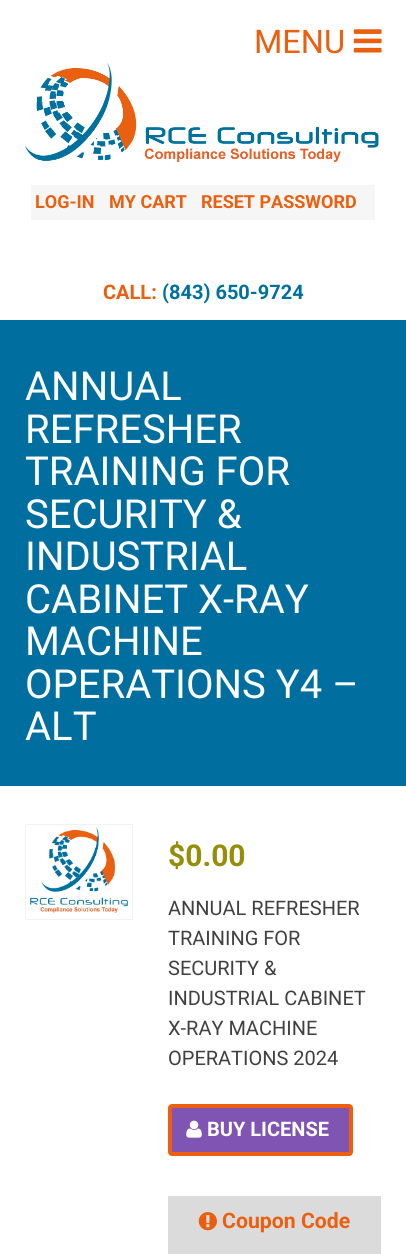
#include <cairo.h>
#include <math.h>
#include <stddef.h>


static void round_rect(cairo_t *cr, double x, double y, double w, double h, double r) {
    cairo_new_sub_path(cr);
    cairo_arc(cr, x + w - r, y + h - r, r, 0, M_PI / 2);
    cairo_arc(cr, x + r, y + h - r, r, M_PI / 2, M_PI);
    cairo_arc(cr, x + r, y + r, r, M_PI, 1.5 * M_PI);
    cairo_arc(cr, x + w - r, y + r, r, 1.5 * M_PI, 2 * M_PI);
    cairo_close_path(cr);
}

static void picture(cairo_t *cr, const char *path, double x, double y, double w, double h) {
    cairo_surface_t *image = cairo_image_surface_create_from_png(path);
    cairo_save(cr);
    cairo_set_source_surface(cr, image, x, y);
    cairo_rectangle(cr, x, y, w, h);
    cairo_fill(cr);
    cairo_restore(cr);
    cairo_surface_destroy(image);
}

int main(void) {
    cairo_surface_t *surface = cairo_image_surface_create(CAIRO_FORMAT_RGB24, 406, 1254);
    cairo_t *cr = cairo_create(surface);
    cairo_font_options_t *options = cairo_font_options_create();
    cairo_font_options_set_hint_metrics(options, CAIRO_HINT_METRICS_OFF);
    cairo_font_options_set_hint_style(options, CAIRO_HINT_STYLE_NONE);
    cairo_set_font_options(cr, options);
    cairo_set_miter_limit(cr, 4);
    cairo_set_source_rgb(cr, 1, 1, 1);
    cairo_paint(cr);
    cairo_select_font_face(cr, "Roboto", CAIRO_FONT_SLANT_NORMAL, CAIRO_FONT_WEIGHT_NORMAL);
    cairo_set_font_size(cr, 32.5);
    cairo_set_source_rgb(cr, 0.918, 0.373, 0.059);
    cairo_move_to(cr, 254, 53);
    cairo_show_text(cr, "MENU");
    picture(cr, "img1.png", 353, 29, 29, 24);
    picture(cr, "img2.png", 25, 63, 354, 99);
    cairo_set_source_rgb(cr, 0.961, 0.961, 0.961);
    cairo_rectangle(cr, 31, 185, 344, 35);
    cairo_fill(cr);
    cairo_select_font_face(cr, "Roboto", CAIRO_FONT_SLANT_NORMAL, CAIRO_FONT_WEIGHT_BOLD);
    cairo_set_font_size(cr, 18);
    cairo_set_source_rgb(cr, 0.918, 0.373, 0.059);
    cairo_move_to(cr, 35, 208);
    cairo_show_text(cr, "LOG-IN");
    cairo_move_to(cr, 109, 208);
    cairo_show_text(cr, "MY CART");
    cairo_move_to(cr, 201, 208);
    cairo_show_text(cr, "RESET PASSWORD");
    cairo_set_font_size(cr, 20);
    cairo_move_to(cr, 103, 299);
    cairo_show_text(cr, "CALL:");
    cairo_set_source_rgb(cr, 0, 0.439, 0.624);
    cairo_move_to(cr, 162, 299);
    cairo_show_text(cr, "(843) 650-9724");
    cairo_set_source_rgb(cr, 0, 0.435, 0.627);
    cairo_rectangle(cr, 0, 320, 406, 466);
    cairo_fill(cr);
    cairo_select_font_face(cr, "Roboto", CAIRO_FONT_SLANT_NORMAL, CAIRO_FONT_WEIGHT_NORMAL);
    cairo_set_font_size(cr, 40);
    cairo_set_source_rgb(cr, 1, 1, 1);
    cairo_move_to(cr, 25, 400);
    cairo_show_text(cr, "ANNUAL");
    cairo_move_to(cr, 25, 443);
    cairo_show_text(cr, "REFRESHER");
    cairo_move_to(cr, 25, 485);
    cairo_show_text(cr, "TRAINING FOR");
    cairo_move_to(cr, 25, 528);
    cairo_show_text(cr, "SECURITY &");
    cairo_move_to(cr, 25, 570);
    cairo_show_text(cr, "INDUSTRIAL");
    cairo_move_to(cr, 25, 613);
    cairo_show_text(cr, "CABINET X-RAY");
    cairo_move_to(cr, 25, 655);
    cairo_show_text(cr, "MACHINE");
    cairo_move_to(cr, 25, 698);
    cairo_show_text(cr, "OPERATIONS Y4 –");
    cairo_move_to(cr, 25, 740);
    cairo_show_text(cr, "ALT");
    cairo_rectangle(cr, 25.5, 824.5, 107, 95);
    cairo_set_source_rgb(cr, 0.949, 0.949, 0.949);
    cairo_set_line_width(cr, 1);
    cairo_stroke(cr);
    picture(cr, "img3.png", 30, 827, 98, 86);
    cairo_select_font_face(cr, "Roboto", CAIRO_FONT_SLANT_NORMAL, CAIRO_FONT_WEIGHT_BOLD);
    cairo_set_font_size(cr, 30);
    cairo_set_source_rgb(cr, 0.584, 0.557, 0.035);
    cairo_move_to(cr, 168, 866);
    cairo_show_text(cr, "$0.00");
    cairo_select_font_face(cr, "Roboto", CAIRO_FONT_SLANT_NORMAL, CAIRO_FONT_WEIGHT_NORMAL);
    cairo_set_font_size(cr, 20);
    cairo_set_source_rgb(cr, 0.251, 0.251, 0.251);
    cairo_move_to(cr, 168, 915);
    cairo_show_text(cr, "ANNUAL REFRESHER");
    cairo_move_to(cr, 168, 945);
    cairo_show_text(cr, "TRAINING FOR");
    cairo_move_to(cr, 168, 975);
    cairo_show_text(cr, "SECURITY &");
    cairo_move_to(cr, 168, 1005);
    cairo_show_text(cr, "INDUSTRIAL CABINET");
    cairo_move_to(cr, 168, 1035);
    cairo_show_text(cr, "X-RAY MACHINE");
    cairo_move_to(cr, 168, 1065);
    cairo_show_text(cr, "OPERATIONS 2024");
    cairo_set_source_rgb(cr, 0.498, 0.329, 0.702);
    round_rect(cr, 170, 1106, 181, 48, 2);
    cairo_fill_preserve(cr);
    cairo_set_source_rgb(cr, 0.929, 0.373, 0.059);
    cairo_set_line_width(cr, 4);
    cairo_stroke(cr);
    picture(cr, "img4.png", 186, 1120, 16, 18);
    cairo_select_font_face(cr, "Roboto", CAIRO_FONT_SLANT_NORMAL, CAIRO_FONT_WEIGHT_BOLD);
    cairo_set_source_rgb(cr, 1, 1, 1);
    cairo_move_to(cr, 207, 1136);
    cairo_show_text(cr, "BUY LICENSE");
    cairo_set_source_rgb(cr, 0.859, 0.859, 0.859);
    cairo_rectangle(cr, 168, 1196, 213, 58);
    cairo_fill(cr);
    picture(cr, "img5.png", 198, 1212, 19, 19);
    cairo_set_font_size(cr, 21.25);
    cairo_set_source_rgb(cr, 0.918, 0.373, 0.059);
    cairo_move_to(cr, 222, 1228);
    cairo_show_text(cr, "Coupon Code");
    cairo_surface_write_to_png(surface, "page.png");
    cairo_font_options_destroy(options);
    cairo_destroy(cr);
    cairo_surface_destroy(surface);
    return 0;
}
